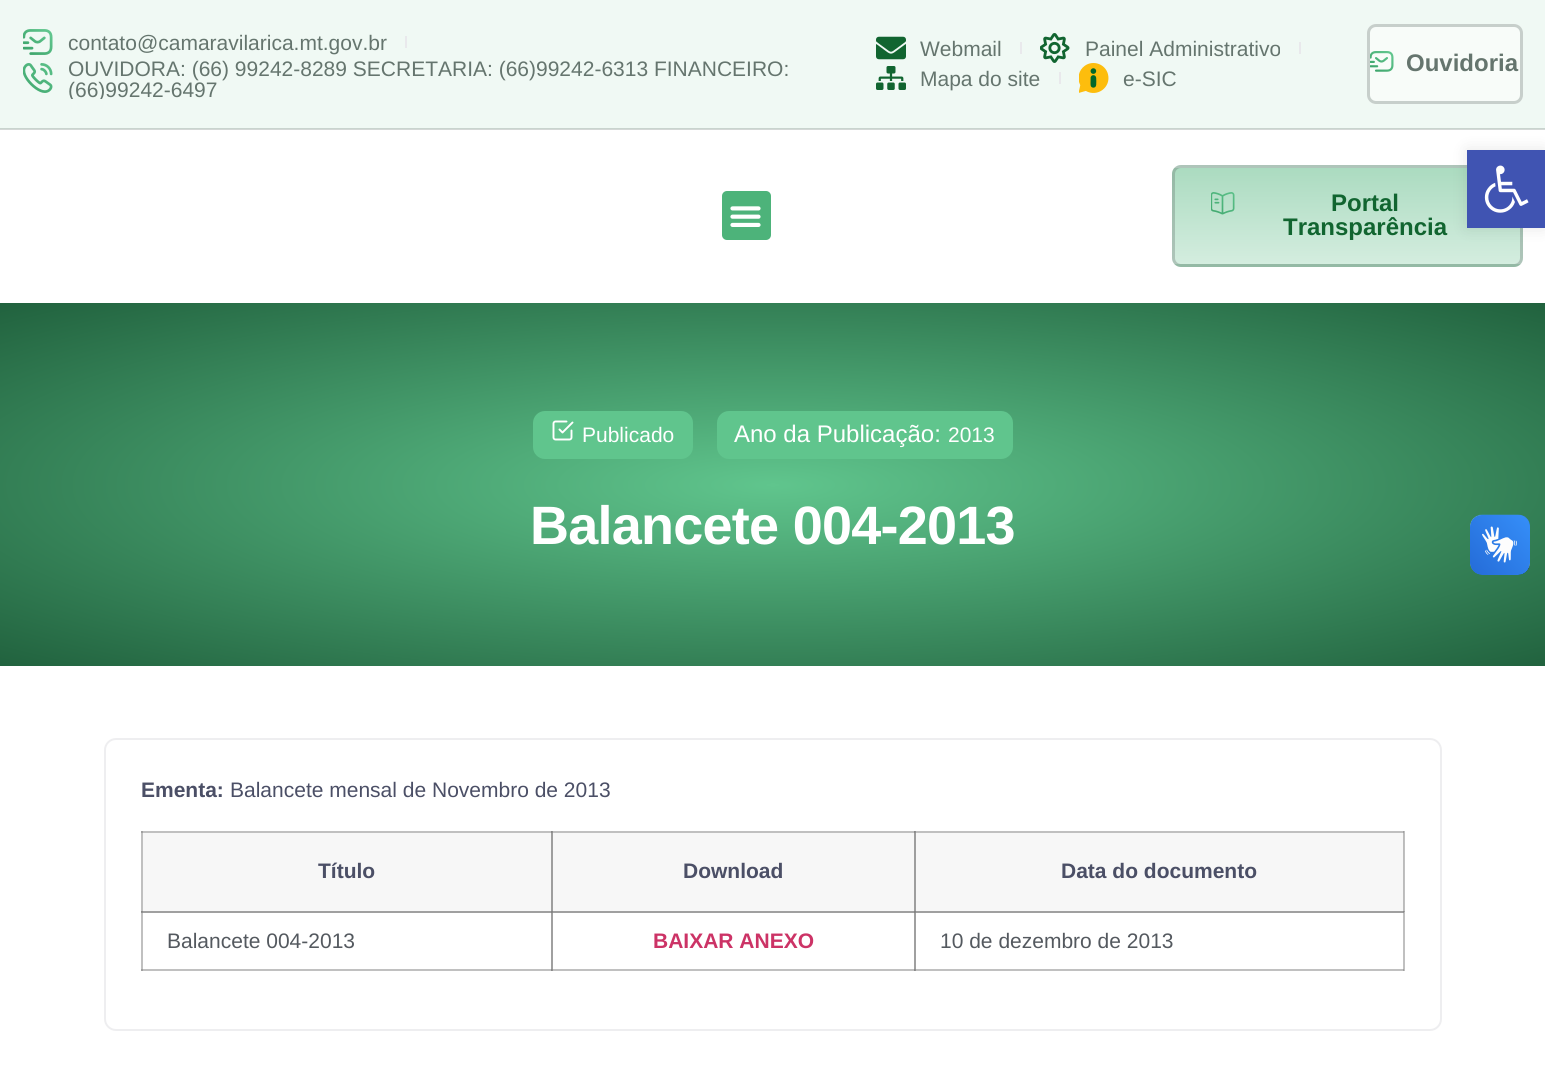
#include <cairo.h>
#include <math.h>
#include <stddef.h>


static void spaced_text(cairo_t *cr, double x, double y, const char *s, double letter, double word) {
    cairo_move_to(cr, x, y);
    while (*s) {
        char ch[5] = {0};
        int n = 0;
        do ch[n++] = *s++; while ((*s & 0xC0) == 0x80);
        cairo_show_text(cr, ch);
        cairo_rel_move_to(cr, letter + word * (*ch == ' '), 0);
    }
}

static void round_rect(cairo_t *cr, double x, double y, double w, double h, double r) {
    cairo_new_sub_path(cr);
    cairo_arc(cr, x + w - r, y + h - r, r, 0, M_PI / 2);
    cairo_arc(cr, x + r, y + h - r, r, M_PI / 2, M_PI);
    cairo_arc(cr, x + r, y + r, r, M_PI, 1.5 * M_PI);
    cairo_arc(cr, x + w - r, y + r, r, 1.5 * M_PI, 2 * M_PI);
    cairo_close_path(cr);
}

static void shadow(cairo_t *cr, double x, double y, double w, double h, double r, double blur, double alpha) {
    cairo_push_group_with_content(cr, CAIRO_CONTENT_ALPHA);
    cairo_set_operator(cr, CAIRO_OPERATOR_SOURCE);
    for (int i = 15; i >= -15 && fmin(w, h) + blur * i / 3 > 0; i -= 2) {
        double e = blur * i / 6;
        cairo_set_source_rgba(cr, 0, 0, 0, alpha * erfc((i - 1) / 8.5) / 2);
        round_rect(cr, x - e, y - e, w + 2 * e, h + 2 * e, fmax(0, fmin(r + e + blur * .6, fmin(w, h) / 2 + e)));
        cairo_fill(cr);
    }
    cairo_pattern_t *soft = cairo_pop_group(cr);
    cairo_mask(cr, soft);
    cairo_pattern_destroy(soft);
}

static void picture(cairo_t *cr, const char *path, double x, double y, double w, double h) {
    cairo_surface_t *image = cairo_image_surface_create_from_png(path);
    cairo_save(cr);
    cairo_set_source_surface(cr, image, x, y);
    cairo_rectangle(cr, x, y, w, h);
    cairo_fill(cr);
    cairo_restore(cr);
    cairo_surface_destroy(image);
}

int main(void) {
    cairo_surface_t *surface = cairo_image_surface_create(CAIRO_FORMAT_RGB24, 1545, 1087);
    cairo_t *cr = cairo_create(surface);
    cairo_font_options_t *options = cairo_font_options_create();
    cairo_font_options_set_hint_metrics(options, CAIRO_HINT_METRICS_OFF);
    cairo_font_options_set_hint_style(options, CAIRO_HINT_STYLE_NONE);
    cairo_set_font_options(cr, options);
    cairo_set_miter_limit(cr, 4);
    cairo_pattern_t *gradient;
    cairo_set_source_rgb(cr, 1, 1, 1);
    cairo_paint(cr);
    cairo_set_source_rgb(cr, 0.753, 0.753, 0.753);
    cairo_rectangle(cr, 141, 831, 2, 140);
    cairo_fill(cr);
    cairo_rectangle(cr, 141, 831, 774, 2);
    cairo_fill(cr);
    cairo_set_source_rgb(cr, 0.627, 0.627, 0.627);
    cairo_rectangle(cr, 141, 831, 2, 2);
    cairo_fill(cr);
    cairo_set_source_rgb(cr, 0.565, 0.565, 0.565);
    cairo_rectangle(cr, 551, 831, 2, 2);
    cairo_fill(cr);
    cairo_set_source_rgb(cr, 0.533, 0.533, 0.533);
    cairo_rectangle(cr, 551, 831, 1, 2);
    cairo_fill(cr);
    cairo_set_source_rgb(cr, 0.753, 0.753, 0.753);
    cairo_rectangle(cr, 1404, 831, 1, 81);
    cairo_fill(cr);
    cairo_rectangle(cr, 141, 969, 411, 2);
    cairo_fill(cr);
    cairo_set_source_rgb(cr, 0.627, 0.627, 0.627);
    cairo_rectangle(cr, 141, 969, 2, 2);
    cairo_fill(cr);
    cairo_rectangle(cr, 141, 911, 411, 2);
    cairo_fill(cr);
    cairo_set_source_rgb(cr, 0.565, 0.565, 0.565);
    cairo_rectangle(cr, 141, 912, 2, 1);
    cairo_fill(cr);
    cairo_set_source_rgb(cr, 0.533, 0.533, 0.533);
    cairo_rectangle(cr, 141, 911, 2, 1);
    cairo_fill(cr);
    cairo_set_source_rgb(cr, 0.627, 0.627, 0.627);
    cairo_rectangle(cr, 551, 911, 2, 60);
    cairo_fill(cr);
    cairo_set_source_rgb(cr, 0.753, 0.753, 0.753);
    cairo_rectangle(cr, 551, 969, 364, 2);
    cairo_fill(cr);
    cairo_set_source_rgb(cr, 0.565, 0.565, 0.565);
    cairo_rectangle(cr, 551, 969, 2, 2);
    cairo_fill(cr);
    cairo_set_source_rgb(cr, 0.533, 0.533, 0.533);
    cairo_rectangle(cr, 551, 969, 1, 2);
    cairo_fill(cr);
    cairo_set_source_rgb(cr, 0.627, 0.627, 0.627);
    cairo_rectangle(cr, 551, 911, 364, 2);
    cairo_fill(cr);
    cairo_set_source_rgb(cr, 0.533, 0.533, 0.533);
    cairo_rectangle(cr, 551, 912, 2, 1);
    cairo_fill(cr);
    cairo_set_source_rgb(cr, 0.51, 0.51, 0.51);
    cairo_rectangle(cr, 551, 911, 2, 1);
    cairo_fill(cr);
    cairo_rectangle(cr, 551, 911, 1, 2);
    cairo_fill(cr);
    cairo_set_source_rgb(cr, 0.627, 0.627, 0.627);
    cairo_rectangle(cr, 914, 911, 2, 60);
    cairo_fill(cr);
    cairo_set_source_rgb(cr, 0.753, 0.753, 0.753);
    cairo_rectangle(cr, 914, 969, 490, 2);
    cairo_fill(cr);
    cairo_set_source_rgb(cr, 0.565, 0.565, 0.565);
    cairo_rectangle(cr, 914, 969, 2, 2);
    cairo_fill(cr);
    cairo_set_source_rgb(cr, 0.533, 0.533, 0.533);
    cairo_rectangle(cr, 914, 969, 1, 2);
    cairo_fill(cr);
    cairo_set_source_rgb(cr, 0.753, 0.753, 0.753);
    cairo_rectangle(cr, 1403, 911, 2, 60);
    cairo_fill(cr);
    cairo_set_source_rgb(cr, 0.627, 0.627, 0.627);
    cairo_rectangle(cr, 1403, 911, 2, 1);
    cairo_fill(cr);
    cairo_rectangle(cr, 1403, 969, 1, 2);
    cairo_fill(cr);
    cairo_set_source_rgb(cr, 0.831, 0.847, 0.839);
    cairo_rectangle(cr, 0, 129, 1545, 1);
    cairo_fill(cr);
    cairo_set_source_rgb(cr, 0.941, 0.976, 0.957);
    cairo_rectangle(cr, 0, 0, 1545, 128);
    cairo_fill(cr);
    cairo_set_source_rgb(cr, 0.788, 0.831, 0.808);
    cairo_rectangle(cr, 0, 128, 1545, 1);
    cairo_fill(cr);
    picture(cr, "img1.png", 23, 29, 30, 26);
    cairo_select_font_face(cr, "Liberation Sans", CAIRO_FONT_SLANT_NORMAL, CAIRO_FONT_WEIGHT_NORMAL);
    cairo_set_font_size(cr, 21);
    cairo_set_source_rgb(cr, 0.396, 0.459, 0.431);
    cairo_move_to(cr, 68, 50);
    cairo_show_text(cr, "contato@camaravilarica.mt.gov.br");
    cairo_set_source_rgb(cr, 0.914, 0.914, 0.922);
    cairo_rectangle(cr, 405, 36, 2, 12);
    cairo_fill(cr);
    picture(cr, "img2.png", 23, 63, 30, 30);
    cairo_set_source_rgb(cr, 0.396, 0.459, 0.431);
    cairo_move_to(cr, 68, 76);
    cairo_show_text(cr, "OUVIDORA: (66) 99242-8289 SECRETARIA: (66)99242-6313 FINANCEIRO:");
    cairo_save(cr);
    cairo_rectangle(cr, 23, 27, 829, 72);
    cairo_clip(cr);
    cairo_move_to(cr, 68, 97);
    cairo_show_text(cr, "(66)99242-6497");
    cairo_restore(cr);
    picture(cr, "img3.png", 876, 36, 30, 24);
    cairo_move_to(cr, 920, 56);
    cairo_show_text(cr, "Webmail");
    cairo_set_source_rgb(cr, 0.914, 0.914, 0.922);
    cairo_rectangle(cr, 1020, 42, 2, 12);
    cairo_fill(cr);
    picture(cr, "img4.png", 1040, 33, 30, 30);
    cairo_set_source_rgb(cr, 0.396, 0.459, 0.431);
    cairo_move_to(cr, 1085, 56);
    cairo_show_text(cr, "Painel Administrativo");
    cairo_set_source_rgb(cr, 0.914, 0.914, 0.922);
    cairo_rectangle(cr, 1299, 42, 2, 12);
    cairo_fill(cr);
    picture(cr, "img5.png", 876, 66, 30, 24);
    cairo_set_source_rgb(cr, 0.396, 0.459, 0.431);
    cairo_move_to(cr, 920, 86);
    cairo_show_text(cr, "Mapa do site");
    cairo_set_source_rgb(cr, 0.914, 0.914, 0.922);
    cairo_rectangle(cr, 1059, 72, 2, 12);
    cairo_fill(cr);
    picture(cr, "img6.png", 1079, 63, 30, 30);
    cairo_set_source_rgb(cr, 0.396, 0.459, 0.431);
    cairo_move_to(cr, 1123, 86);
    cairo_show_text(cr, "e-SIC");
    cairo_set_source_rgb(cr, 0.969, 0.988, 0.976);
    round_rect(cr, 1367, 24, 156, 80, 9);
    cairo_fill(cr);
    round_rect(cr, 1368.5, 25.5, 153, 77, 7.5);
    cairo_set_source_rgba(cr, 0.396, 0.459, 0.431, 0.33);
    cairo_set_line_width(cr, 3);
    cairo_stroke(cr);
    picture(cr, "img7.png", 1370, 51, 24, 21);
    cairo_select_font_face(cr, "Liberation Sans", CAIRO_FONT_SLANT_NORMAL, CAIRO_FONT_WEIGHT_BOLD);
    cairo_set_font_size(cr, 24);
    cairo_set_source_rgb(cr, 0.396, 0.459, 0.431);
    cairo_move_to(cr, 1406, 71);
    cairo_show_text(cr, "Ouvidoria");
    cairo_set_source_rgb(cr, 0.302, 0.702, 0.478);
    round_rect(cr, 722, 191, 49, 49, 5);
    cairo_fill(cr);
    picture(cr, "img8.png", 730, 206, 31, 21);
    cairo_save(cr);
    round_rect(cr, 1172, 165, 351, 102, 9);
    cairo_clip(cr);
    gradient = cairo_pattern_create_linear(1347, 72, 1347, 168);
    cairo_pattern_add_color_stop_rgba(gradient, 0, 0.671, 0.859, 0.753, 1);
    cairo_pattern_add_color_stop_rgba(gradient, 1, 0.831, 0.929, 0.875, 1);
    cairo_set_source(cr, gradient);
    cairo_pattern_destroy(gradient);
    cairo_rectangle(cr, 1172, 165, 295, 3);
    cairo_fill(cr);
    gradient = cairo_pattern_create_linear(1347, 168, 1347, 264);
    cairo_pattern_add_color_stop_rgba(gradient, 0, 0.671, 0.859, 0.753, 1);
    cairo_pattern_add_color_stop_rgba(gradient, 1, 0.831, 0.929, 0.875, 1);
    cairo_set_source(cr, gradient);
    cairo_pattern_destroy(gradient);
    cairo_rectangle(cr, 1172, 168, 351, 96);
    cairo_fill(cr);
    gradient = cairo_pattern_create_linear(1347, 264, 1347, 360);
    cairo_pattern_add_color_stop_rgba(gradient, 0, 0.671, 0.859, 0.753, 1);
    cairo_pattern_add_color_stop_rgba(gradient, 1, 0.831, 0.929, 0.875, 1);
    cairo_set_source(cr, gradient);
    cairo_pattern_destroy(gradient);
    cairo_rectangle(cr, 1172, 264, 351, 3);
    cairo_fill(cr);
    cairo_restore(cr);
    round_rect(cr, 1173.5, 166.5, 348, 99, 7.5);
    cairo_set_source_rgba(cr, 0.396, 0.459, 0.431, 0.33);
    cairo_stroke(cr);
    picture(cr, "img9.png", 1211, 192, 24, 23);
    cairo_set_source_rgb(cr, 0.067, 0.396, 0.188);
    cairo_move_to(cr, 1331, 211);
    cairo_show_text(cr, "Portal");
    cairo_move_to(cr, 1283, 235);
    cairo_show_text(cr, "Transparência");
    cairo_set_source_rgb(cr, 0, 0, 0);
    shadow(cr, 1467, 150, 78, 78, 0, 7.5, 0.1);
    cairo_set_source_rgb(cr, 0.251, 0.329, 0.698);
    cairo_rectangle(cr, 1467, 150, 78, 78);
    cairo_fill(cr);
    picture(cr, "img10.png", 1484, 165, 45, 48);
    gradient = cairo_pattern_create_radial(0, 0, 0, 0, 0, 1);
    cairo_pattern_set_matrix(gradient, &(cairo_matrix_t){1.0 / 1092, 0, 0, 1.0 / 257, -1.0 * 773 / 1092, -1.0 * 485 / 257});
    cairo_pattern_add_color_stop_rgba(gradient, 0, 0.376, 0.773, 0.553, 1);
    cairo_pattern_add_color_stop_rgba(gradient, 1, 0.129, 0.384, 0.243, 1);
    cairo_set_source(cr, gradient);
    cairo_pattern_destroy(gradient);
    cairo_rectangle(cr, 0, 303, 1545, 363);
    cairo_fill(cr);
    cairo_set_source_rgb(cr, 0.376, 0.773, 0.553);
    round_rect(cr, 533, 411, 160, 48, 12);
    cairo_fill(cr);
    picture(cr, "img11.png", 552, 420, 22, 21);
    cairo_select_font_face(cr, "Liberation Sans", CAIRO_FONT_SLANT_NORMAL, CAIRO_FONT_WEIGHT_NORMAL);
    cairo_set_font_size(cr, 21);
    cairo_set_source_rgb(cr, 1, 1, 1);
    cairo_move_to(cr, 582, 442);
    cairo_show_text(cr, "Publicado");
    cairo_set_source_rgb(cr, 0.376, 0.773, 0.553);
    round_rect(cr, 717, 411, 296, 48, 12);
    cairo_fill(cr);
    cairo_set_font_size(cr, 24);
    cairo_set_source_rgb(cr, 1, 1, 1);
    cairo_move_to(cr, 734, 442);
    cairo_show_text(cr, "Ano da Publicação:");
    cairo_set_font_size(cr, 21);
    cairo_move_to(cr, 948, 442);
    cairo_show_text(cr, "2013");
    cairo_select_font_face(cr, "Liberation Sans", CAIRO_FONT_SLANT_NORMAL, CAIRO_FONT_WEIGHT_BOLD);
    cairo_set_font_size(cr, 54);
    spaced_text(cr, 530, 544, "Balancete 004-2013", -0.75, 0);
    round_rect(cr, 105, 739, 1336, 291, 11);
    cairo_set_source_rgb(cr, 0.933, 0.933, 0.941);
    cairo_set_line_width(cr, 2);
    cairo_stroke(cr);
    cairo_set_font_size(cr, 21);
    cairo_set_source_rgb(cr, 0.294, 0.31, 0.4);
    cairo_move_to(cr, 141, 797);
    cairo_show_text(cr, "Ementa:");
    cairo_select_font_face(cr, "Liberation Sans", CAIRO_FONT_SLANT_NORMAL, CAIRO_FONT_WEIGHT_NORMAL);
    cairo_move_to(cr, 230, 797);
    cairo_show_text(cr, "Balancete mensal de Novembro de 2013");
    cairo_set_source_rgb(cr, 0.965, 0.965, 0.965);
    cairo_rectangle(cr, 143, 833, 408, 78);
    cairo_fill(cr);
    cairo_set_source_rgb(cr, 0.62, 0.62, 0.62);
    cairo_rectangle(cr, 551, 833, 2, 78);
    cairo_fill(cr);
    cairo_select_font_face(cr, "Liberation Sans", CAIRO_FONT_SLANT_NORMAL, CAIRO_FONT_WEIGHT_BOLD);
    cairo_set_source_rgb(cr, 0.294, 0.31, 0.4);
    cairo_move_to(cr, 318, 878);
    cairo_show_text(cr, "Título");
    cairo_set_source_rgb(cr, 0.965, 0.965, 0.965);
    cairo_rectangle(cr, 553, 833, 361, 78);
    cairo_fill(cr);
    cairo_set_source_rgb(cr, 0.62, 0.62, 0.62);
    cairo_rectangle(cr, 914, 833, 2, 78);
    cairo_fill(cr);
    cairo_set_source_rgb(cr, 0.294, 0.31, 0.4);
    cairo_move_to(cr, 683, 878);
    cairo_show_text(cr, "Download");
    cairo_set_source_rgb(cr, 0.965, 0.965, 0.965);
    cairo_rectangle(cr, 916, 833, 487, 78);
    cairo_fill(cr);
    cairo_set_source_rgb(cr, 0.733, 0.733, 0.733);
    cairo_rectangle(cr, 1403, 833, 1, 78);
    cairo_fill(cr);
    cairo_set_source_rgb(cr, 0.753, 0.753, 0.753);
    cairo_rectangle(cr, 914, 831, 490, 2);
    cairo_fill(cr);
    cairo_set_source_rgb(cr, 0.565, 0.565, 0.565);
    cairo_rectangle(cr, 914, 831, 2, 2);
    cairo_fill(cr);
    cairo_set_source_rgb(cr, 0.533, 0.533, 0.533);
    cairo_rectangle(cr, 914, 831, 1, 2);
    cairo_fill(cr);
    cairo_set_source_rgb(cr, 0.627, 0.627, 0.627);
    cairo_rectangle(cr, 1403, 831, 1, 2);
    cairo_fill(cr);
    cairo_set_source_rgb(cr, 0.294, 0.31, 0.4);
    cairo_move_to(cr, 1061, 878);
    cairo_show_text(cr, "Data do documento");
    cairo_select_font_face(cr, "Liberation Sans", CAIRO_FONT_SLANT_NORMAL, CAIRO_FONT_WEIGHT_NORMAL);
    cairo_set_source_rgb(cr, 0.329, 0.349, 0.373);
    cairo_move_to(cr, 167, 948);
    cairo_show_text(cr, "Balancete 004-2013");
    cairo_select_font_face(cr, "Liberation Sans", CAIRO_FONT_SLANT_NORMAL, CAIRO_FONT_WEIGHT_BOLD);
    cairo_set_source_rgb(cr, 0.8, 0.2, 0.4);
    cairo_move_to(cr, 653, 948);
    cairo_show_text(cr, "BAIXAR ANEXO");
    cairo_set_source_rgb(cr, 0.627, 0.627, 0.627);
    cairo_rectangle(cr, 914, 911, 490, 2);
    cairo_fill(cr);
    cairo_set_source_rgb(cr, 0.533, 0.533, 0.533);
    cairo_rectangle(cr, 914, 912, 2, 1);
    cairo_fill(cr);
    cairo_set_source_rgb(cr, 0.51, 0.51, 0.51);
    cairo_rectangle(cr, 914, 911, 2, 1);
    cairo_fill(cr);
    cairo_rectangle(cr, 914, 911, 1, 2);
    cairo_fill(cr);
    cairo_set_source_rgb(cr, 0.565, 0.565, 0.565);
    cairo_rectangle(cr, 1403, 911, 1, 2);
    cairo_fill(cr);
    cairo_set_source_rgb(cr, 0.533, 0.533, 0.533);
    cairo_rectangle(cr, 1403, 911, 1, 1);
    cairo_fill(cr);
    cairo_select_font_face(cr, "Liberation Sans", CAIRO_FONT_SLANT_NORMAL, CAIRO_FONT_WEIGHT_NORMAL);
    cairo_set_source_rgb(cr, 0.329, 0.349, 0.373);
    cairo_move_to(cr, 940, 948);
    cairo_show_text(cr, "10 de dezembro de 2013");
    picture(cr, "img12.png", 1470, 514, 60, 61);
    picture(cr, "img13.png", 1470, 515, 60, 60);
    cairo_surface_write_to_png(surface, "page.png");
    cairo_font_options_destroy(options);
    cairo_destroy(cr);
    cairo_surface_destroy(surface);
    return 0;
}
